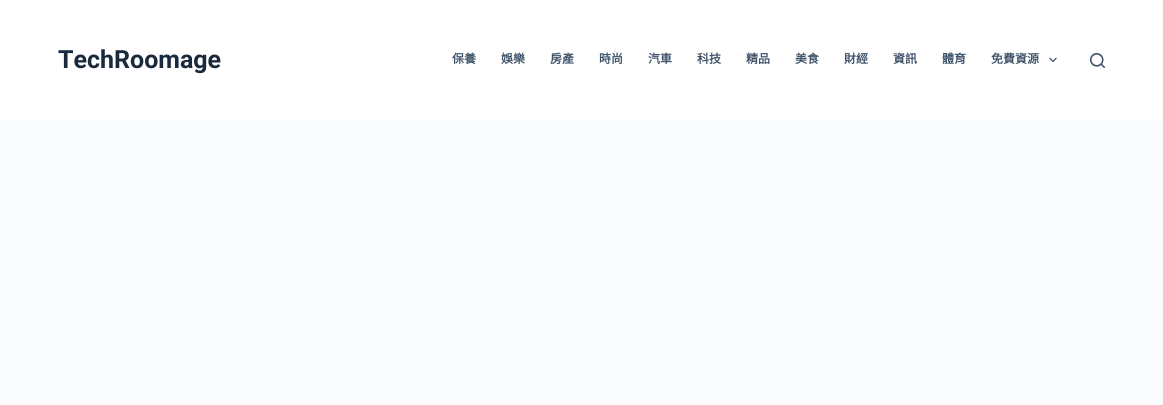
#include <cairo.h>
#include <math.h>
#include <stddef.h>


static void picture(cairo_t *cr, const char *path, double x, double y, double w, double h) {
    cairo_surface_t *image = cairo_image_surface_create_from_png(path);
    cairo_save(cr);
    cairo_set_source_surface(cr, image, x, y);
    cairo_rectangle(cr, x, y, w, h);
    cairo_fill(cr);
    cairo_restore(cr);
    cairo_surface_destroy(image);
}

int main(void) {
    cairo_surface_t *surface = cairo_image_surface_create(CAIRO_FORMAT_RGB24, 1163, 405);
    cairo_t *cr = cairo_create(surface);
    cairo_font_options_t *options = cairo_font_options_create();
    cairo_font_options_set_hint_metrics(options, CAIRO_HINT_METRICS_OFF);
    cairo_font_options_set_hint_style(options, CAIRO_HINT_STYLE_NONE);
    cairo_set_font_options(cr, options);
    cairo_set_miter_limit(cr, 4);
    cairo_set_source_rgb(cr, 0.98, 0.984, 0.988);
    cairo_paint(cr);
    cairo_set_source_rgb(cr, 1, 1, 1);
    cairo_rectangle(cr, 0, 0, 1163, 120);
    cairo_fill(cr);
    cairo_select_font_face(cr, "Roboto", CAIRO_FONT_SLANT_NORMAL, CAIRO_FONT_WEIGHT_BOLD);
    cairo_set_font_size(cr, 25);
    cairo_set_source_rgb(cr, 0.098, 0.165, 0.239);
    cairo_move_to(cr, 58, 68);
    cairo_show_text(cr, "TechRoomage");
    cairo_select_font_face(cr, "Noto Sans CJK TC", CAIRO_FONT_SLANT_NORMAL, CAIRO_FONT_WEIGHT_BOLD);
    cairo_set_font_size(cr, 12);
    cairo_set_source_rgb(cr, 0.227, 0.31, 0.4);
    cairo_move_to(cr, 452, 63);
    cairo_show_text(cr, "保養");
    cairo_move_to(cr, 501, 63);
    cairo_show_text(cr, "娛樂");
    cairo_move_to(cr, 550, 63);
    cairo_show_text(cr, "房產");
    cairo_move_to(cr, 599, 63);
    cairo_show_text(cr, "時尚");
    cairo_move_to(cr, 648, 63);
    cairo_show_text(cr, "汽車");
    cairo_move_to(cr, 697, 63);
    cairo_show_text(cr, "科技");
    cairo_move_to(cr, 746, 63);
    cairo_show_text(cr, "精品");
    cairo_move_to(cr, 795, 63);
    cairo_show_text(cr, "美食");
    cairo_move_to(cr, 844, 63);
    cairo_show_text(cr, "財經");
    cairo_move_to(cr, 893, 63);
    cairo_show_text(cr, "資訊");
    cairo_move_to(cr, 942, 63);
    cairo_show_text(cr, "體育");
    cairo_move_to(cr, 991, 63);
    cairo_show_text(cr, "免費資源");
    picture(cr, "img1.png", 1049, 57, 8, 6);
    picture(cr, "img2.png", 1090, 53, 15, 15);
    cairo_surface_write_to_png(surface, "page.png");
    cairo_font_options_destroy(options);
    cairo_destroy(cr);
    cairo_surface_destroy(surface);
    return 0;
}
